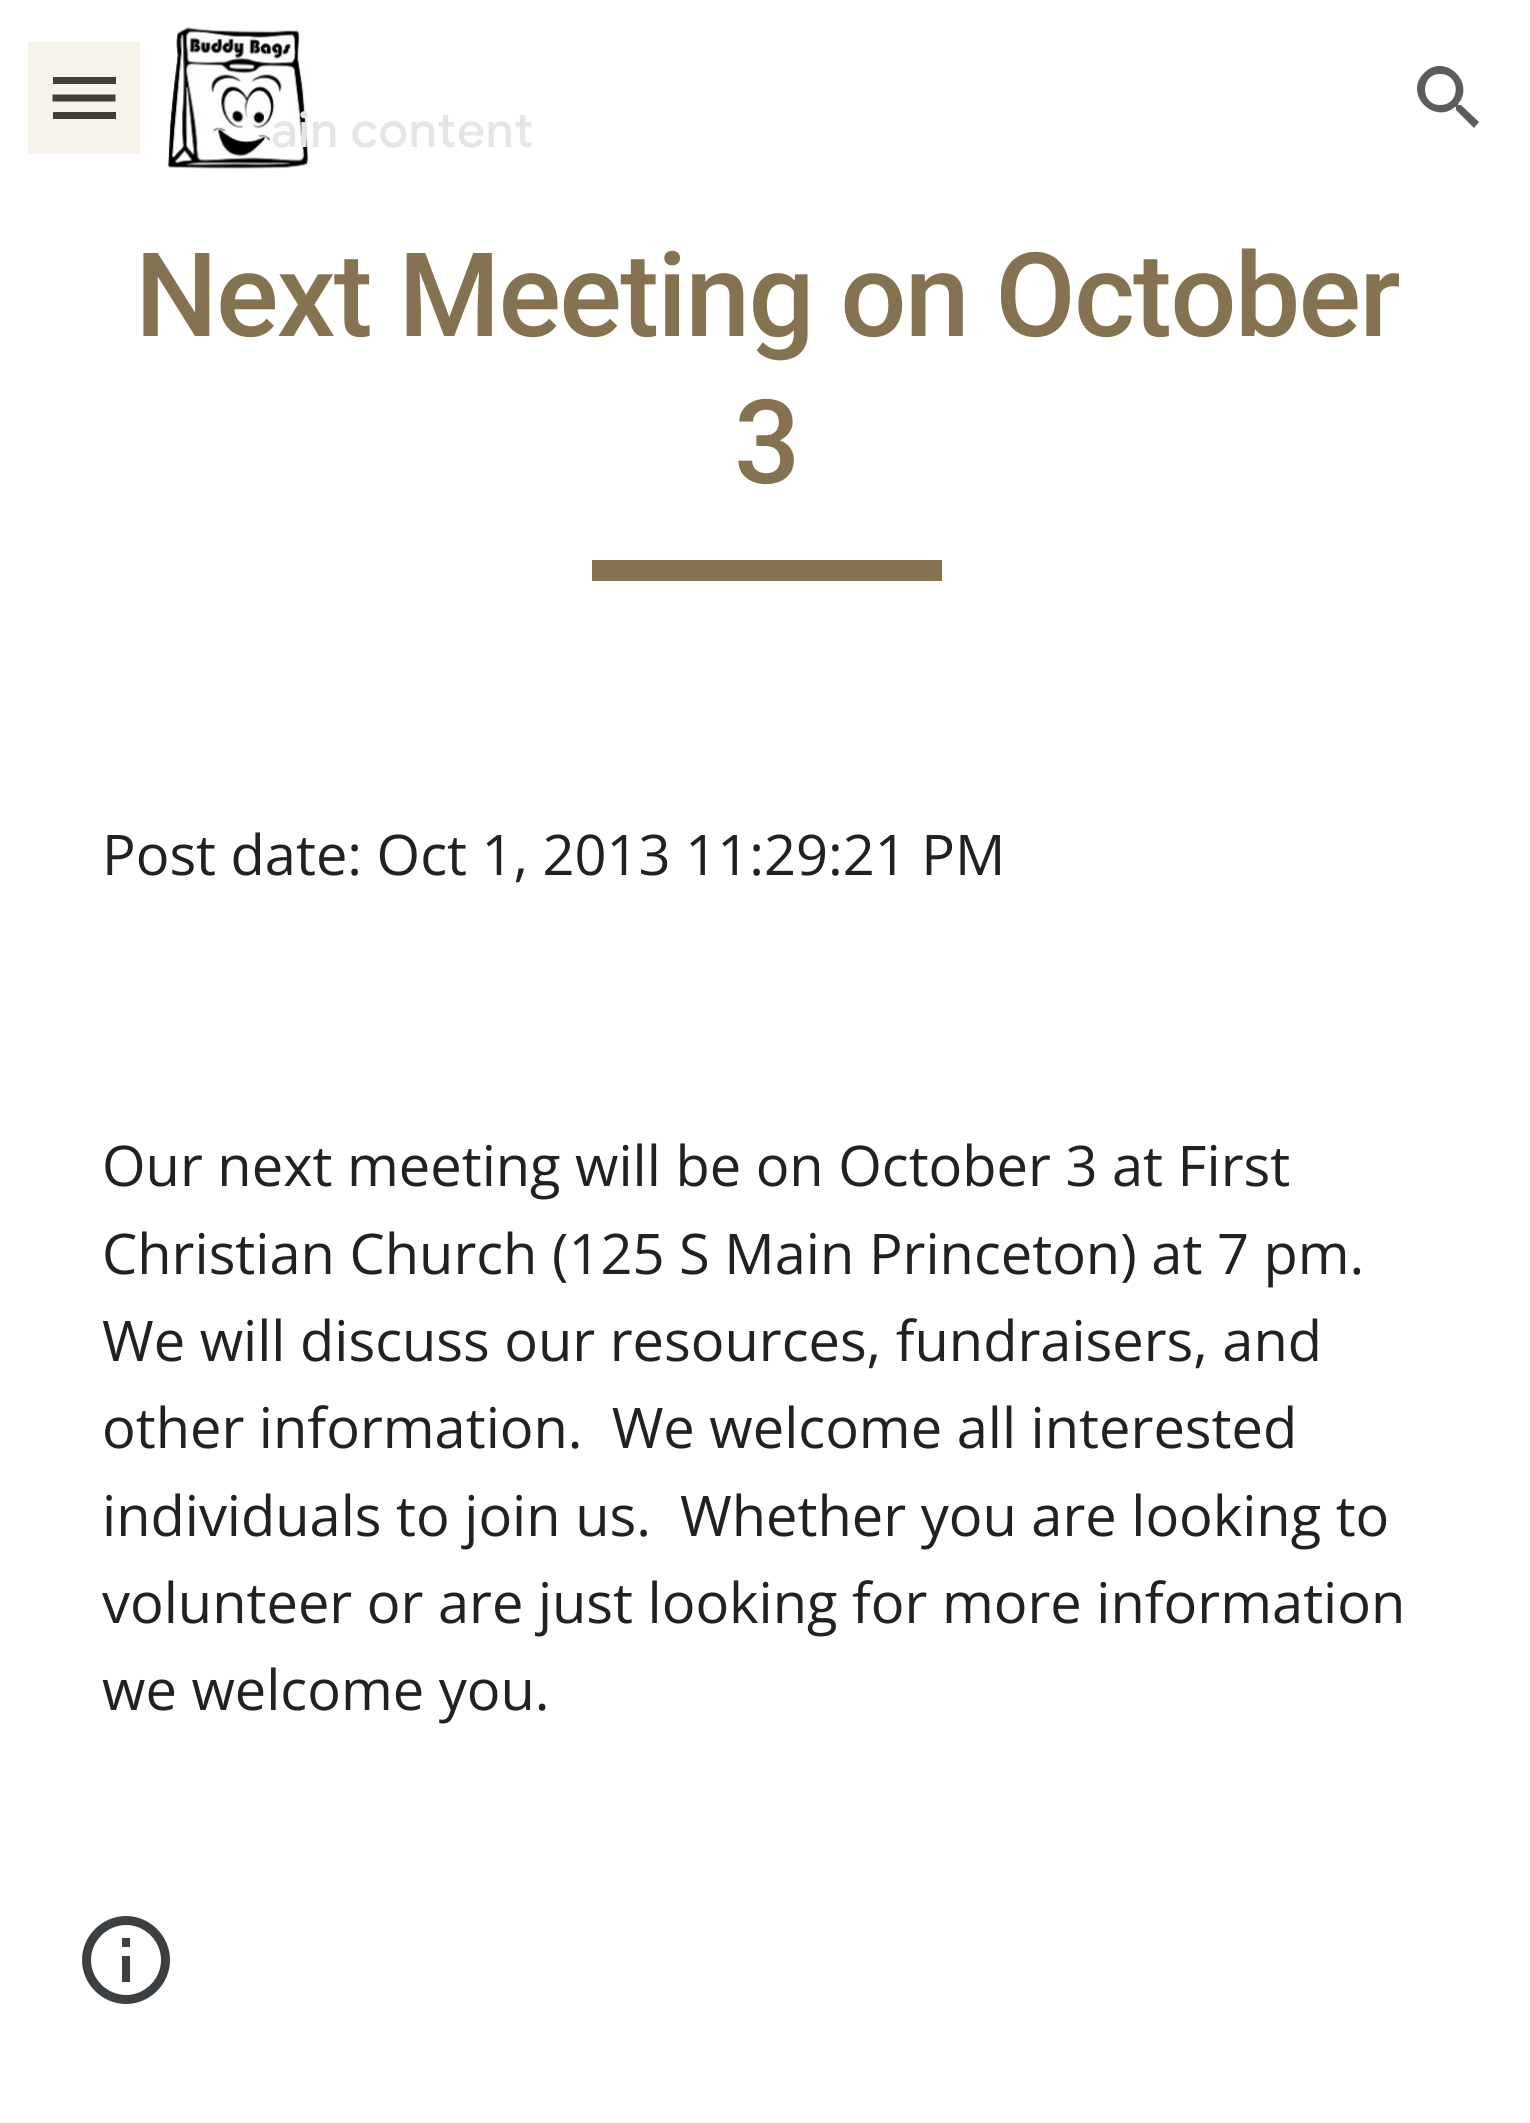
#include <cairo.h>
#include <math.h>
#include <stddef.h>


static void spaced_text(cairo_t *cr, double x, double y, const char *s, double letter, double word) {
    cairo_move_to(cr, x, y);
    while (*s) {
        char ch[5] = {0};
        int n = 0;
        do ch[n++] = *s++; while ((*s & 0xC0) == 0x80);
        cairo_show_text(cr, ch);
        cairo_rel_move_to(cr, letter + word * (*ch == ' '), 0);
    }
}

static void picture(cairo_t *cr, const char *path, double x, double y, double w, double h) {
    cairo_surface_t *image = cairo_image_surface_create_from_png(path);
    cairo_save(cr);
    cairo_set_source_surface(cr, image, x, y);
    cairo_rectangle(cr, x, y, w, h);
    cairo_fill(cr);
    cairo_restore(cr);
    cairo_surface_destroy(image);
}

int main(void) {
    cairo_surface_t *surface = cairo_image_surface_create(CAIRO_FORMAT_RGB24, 1530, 2123);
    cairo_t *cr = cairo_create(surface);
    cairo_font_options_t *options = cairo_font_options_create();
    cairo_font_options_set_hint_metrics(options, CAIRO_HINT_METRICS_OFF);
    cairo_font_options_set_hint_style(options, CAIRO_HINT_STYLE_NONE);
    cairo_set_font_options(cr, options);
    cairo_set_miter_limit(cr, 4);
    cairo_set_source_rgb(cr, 1, 1, 1);
    cairo_paint(cr);
    cairo_set_source_rgb(cr, 0.965, 0.953, 0.918);
    cairo_rectangle(cr, 28, 42, 112, 112);
    cairo_fill(cr);
    picture(cr, "img1.png", 167, 27, 142, 142);
    cairo_select_font_face(cr, "Google Sans Medium", CAIRO_FONT_SLANT_NORMAL, CAIRO_FONT_WEIGHT_NORMAL);
    cairo_set_font_size(cr, 49);
    cairo_set_source_rgb(cr, 0.902, 0.898, 0.894);
    spaced_text(cr, 271, 147, "ain content", 0.5, 0);
    cairo_set_source_rgb(cr, 0.263, 0.247, 0.216);
    cairo_rectangle(cr, 53, 77, 63, 7);
    cairo_fill(cr);
    cairo_new_path(cr);
    cairo_move_to(cr, 52.5, 98);
    cairo_line_to(cr, 115.5, 98);
    cairo_set_line_width(cr, 7);
    cairo_stroke(cr);
    cairo_rectangle(cr, 53, 112, 63, 7);
    cairo_fill(cr);
    cairo_set_source_rgb(cr, 0.361, 0.361, 0.361);
    cairo_new_path(cr);
    cairo_move_to(cr, 1461, 105);
    cairo_line_to(cr, 1458, 105);
    cairo_line_to(cr, 1458, 104);
    cairo_curve_to(cr, 1476, 83, 1445, 52, 1424, 73);
    cairo_curve_to(cr, 1403, 94, 1434, 125, 1455, 107);
    cairo_line_to(cr, 1456, 107);
    cairo_line_to(cr, 1456, 110);
    cairo_line_to(cr, 1474, 128);
    cairo_line_to(cr, 1479, 122);
    cairo_close_path(cr);
    cairo_move_to(cr, 1440, 105);
    cairo_curve_to(cr, 1420, 105, 1420, 74, 1440, 74);
    cairo_curve_to(cr, 1461, 74, 1461, 105, 1440, 105);
    cairo_close_path(cr);
    cairo_fill(cr);
    cairo_select_font_face(cr, "Roboto Medium", CAIRO_FONT_SLANT_NORMAL, CAIRO_FONT_WEIGHT_NORMAL);
    cairo_set_font_size(cr, 116.75);
    cairo_set_source_rgb(cr, 0.522, 0.447, 0.318);
    spaced_text(cr, 135, 336, "Next Meeting on October", -1.75, 0);
    spaced_text(cr, 734, 483, "3", -1.75, 0);
    cairo_rectangle(cr, 592, 560, 350, 21);
    cairo_fill(cr);
    cairo_select_font_face(cr, "Open Sans", CAIRO_FONT_SLANT_NORMAL, CAIRO_FONT_WEIGHT_NORMAL);
    cairo_set_font_size(cr, 56);
    cairo_set_source_rgb(cr, 0.129, 0.129, 0.129);
    cairo_move_to(cr, 102, 875);
    cairo_show_text(cr, "Post date: Oct 1, 2013 11:29:21 PM");
    cairo_move_to(cr, 102, 1186);
    cairo_show_text(cr, "Our next meeting will be on October 3 at First");
    cairo_move_to(cr, 102, 1274);
    cairo_show_text(cr, "Christian Church (125 S Main Princeton) at 7 pm.");
    cairo_move_to(cr, 102, 1361);
    cairo_show_text(cr, "We will discuss our resources, fundraisers, and");
    cairo_move_to(cr, 102, 1448);
    cairo_show_text(cr, "other information.  We welcome all interested");
    cairo_move_to(cr, 102, 1536);
    cairo_show_text(cr, "individuals to join us.  Whether you are looking to");
    cairo_move_to(cr, 102, 1623);
    cairo_show_text(cr, "volunteer or are just looking for more information");
    cairo_move_to(cr, 102, 1710);
    cairo_show_text(cr, "we welcome you.");
    cairo_set_source_rgb(cr, 0.235, 0.251, 0.263);
    cairo_new_path(cr);
    cairo_move_to(cr, 122, 1982);
    cairo_line_to(cr, 130, 1982);
    cairo_line_to(cr, 130, 1956);
    cairo_line_to(cr, 122, 1956);
    cairo_close_path(cr);
    cairo_move_to(cr, 126, 1916);
    cairo_curve_to(cr, 102, 1916, 82, 1936, 82, 1960);
    cairo_curve_to(cr, 82, 1984, 102, 2004, 126, 2004);
    cairo_curve_to(cr, 150, 2004, 170, 1984, 170, 1960);
    cairo_curve_to(cr, 170, 1936, 150, 1916, 126, 1916);
    cairo_close_path(cr);
    cairo_move_to(cr, 126, 1995);
    cairo_curve_to(cr, 107, 1995, 91, 1979, 91, 1960);
    cairo_curve_to(cr, 91, 1941, 107, 1925, 126, 1925);
    cairo_curve_to(cr, 145, 1925, 161, 1941, 161, 1960);
    cairo_curve_to(cr, 161, 1979, 145, 1995, 126, 1995);
    cairo_close_path(cr);
    cairo_move_to(cr, 122, 1947);
    cairo_line_to(cr, 130, 1947);
    cairo_line_to(cr, 130, 1938);
    cairo_line_to(cr, 122, 1938);
    cairo_close_path(cr);
    cairo_fill(cr);
    cairo_surface_write_to_png(surface, "page.png");
    cairo_font_options_destroy(options);
    cairo_destroy(cr);
    cairo_surface_destroy(surface);
    return 0;
}
